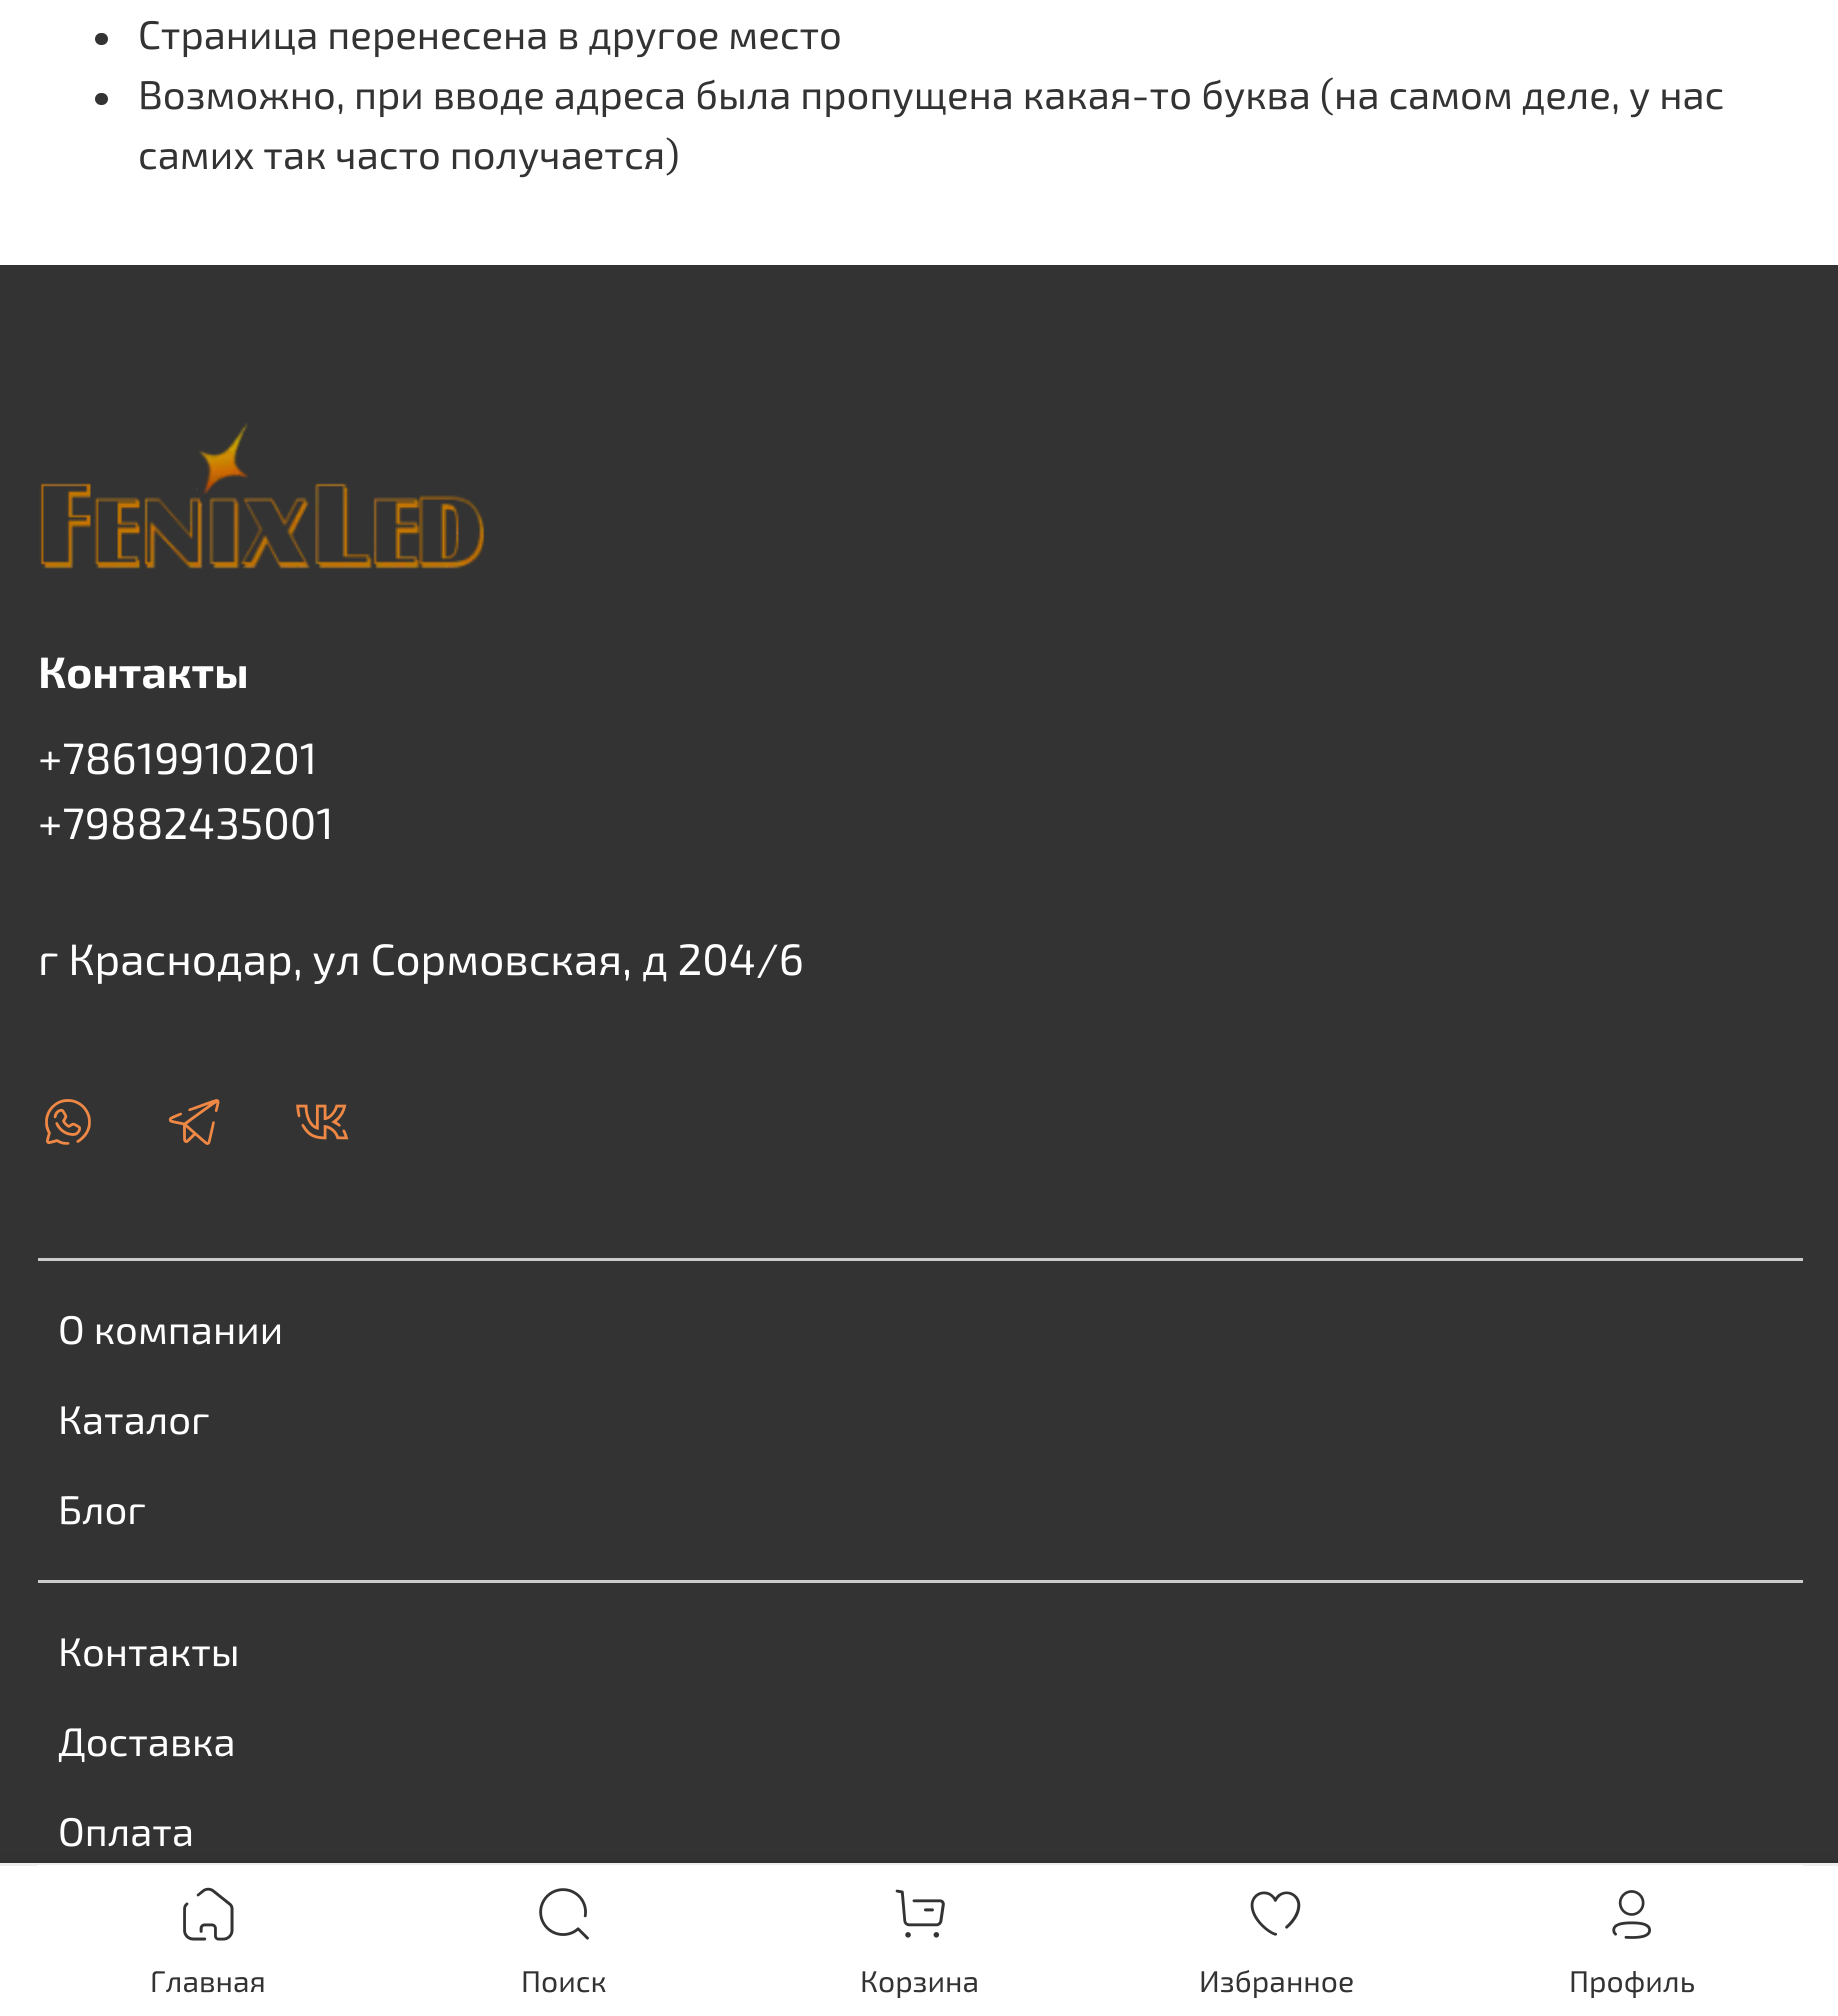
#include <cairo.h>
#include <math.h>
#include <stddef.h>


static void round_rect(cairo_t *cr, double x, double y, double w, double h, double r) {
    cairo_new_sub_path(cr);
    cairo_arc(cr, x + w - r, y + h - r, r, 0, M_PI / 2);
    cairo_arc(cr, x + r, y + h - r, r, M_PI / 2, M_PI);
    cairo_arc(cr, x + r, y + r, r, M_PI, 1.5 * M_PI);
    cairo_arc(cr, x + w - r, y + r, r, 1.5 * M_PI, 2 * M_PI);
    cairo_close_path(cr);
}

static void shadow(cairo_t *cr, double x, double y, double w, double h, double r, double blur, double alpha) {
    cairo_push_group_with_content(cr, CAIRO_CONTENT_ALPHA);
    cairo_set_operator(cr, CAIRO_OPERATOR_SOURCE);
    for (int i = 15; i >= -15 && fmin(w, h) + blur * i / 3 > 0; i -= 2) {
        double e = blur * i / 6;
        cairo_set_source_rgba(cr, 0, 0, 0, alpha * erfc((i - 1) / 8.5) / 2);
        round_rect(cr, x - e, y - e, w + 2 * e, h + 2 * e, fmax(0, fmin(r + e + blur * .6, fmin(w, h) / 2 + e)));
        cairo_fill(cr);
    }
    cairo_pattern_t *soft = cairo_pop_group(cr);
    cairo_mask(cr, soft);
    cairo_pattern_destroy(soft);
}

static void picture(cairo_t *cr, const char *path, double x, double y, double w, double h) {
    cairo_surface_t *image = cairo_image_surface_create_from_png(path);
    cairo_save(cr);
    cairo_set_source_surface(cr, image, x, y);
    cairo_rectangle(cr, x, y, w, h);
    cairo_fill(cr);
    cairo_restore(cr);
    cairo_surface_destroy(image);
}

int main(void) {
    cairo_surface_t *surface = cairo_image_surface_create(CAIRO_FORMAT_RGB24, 1838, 2016);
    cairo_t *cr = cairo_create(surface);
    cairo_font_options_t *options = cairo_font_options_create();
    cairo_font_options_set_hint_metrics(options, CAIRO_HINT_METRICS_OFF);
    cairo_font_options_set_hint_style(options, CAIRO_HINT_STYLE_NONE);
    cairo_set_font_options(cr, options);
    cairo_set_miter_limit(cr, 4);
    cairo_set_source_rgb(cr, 1, 1, 1);
    cairo_paint(cr);
    cairo_set_source_rgb(cr, 0.2, 0.2, 0.2);
    round_rect(cr, 95, 33, 13, 12, 6);
    cairo_fill(cr);
    cairo_select_font_face(cr, "Exo 2", CAIRO_FONT_SLANT_NORMAL, CAIRO_FONT_WEIGHT_NORMAL);
    cairo_set_font_size(cr, 40);
    cairo_move_to(cr, 138, 49);
    cairo_show_text(cr, "Страница перенесена в другое место");
    round_rect(cr, 95, 93, 13, 12, 6);
    cairo_fill(cr);
    cairo_move_to(cr, 138, 109);
    cairo_show_text(cr, "Возможно, при вводе адреса была пропущена какая-то буква (на самом деле, у нас");
    cairo_move_to(cr, 138, 169);
    cairo_show_text(cr, "самих так часто получается)");
    cairo_rectangle(cr, 0, 265, 1838, 1598);
    cairo_fill(cr);
    picture(cr, "img1.png", 39, 423, 446, 146);
    cairo_select_font_face(cr, "Exo 2", CAIRO_FONT_SLANT_NORMAL, CAIRO_FONT_WEIGHT_BOLD);
    cairo_set_font_size(cr, 44);
    cairo_set_source_rgb(cr, 1, 1, 1);
    cairo_move_to(cr, 38, 688);
    cairo_show_text(cr, "Контакты");
    cairo_select_font_face(cr, "Exo 2", CAIRO_FONT_SLANT_NORMAL, CAIRO_FONT_WEIGHT_NORMAL);
    cairo_move_to(cr, 38, 774);
    cairo_show_text(cr, "+78619910201");
    cairo_move_to(cr, 38, 839);
    cairo_show_text(cr, "+79882435001");
    cairo_move_to(cr, 38, 975);
    cairo_show_text(cr, "г Краснодар, ул Сормовская, д 204/6");
    picture(cr, "img2.png", 45, 1099, 46, 46);
    picture(cr, "img3.png", 168, 1099, 52, 46);
    picture(cr, "img4.png", 296, 1104, 53, 36);
    cairo_set_source_rgb(cr, 0.8, 0.8, 0.8);
    cairo_rectangle(cr, 38, 1258, 1765, 3);
    cairo_fill(cr);
    cairo_set_font_size(cr, 40);
    cairo_set_source_rgb(cr, 1, 1, 1);
    cairo_move_to(cr, 58, 1344);
    cairo_show_text(cr, "О компании");
    cairo_move_to(cr, 58, 1434);
    cairo_show_text(cr, "Каталог");
    cairo_move_to(cr, 58, 1524);
    cairo_show_text(cr, "Блог");
    cairo_set_source_rgb(cr, 0.8, 0.8, 0.8);
    cairo_rectangle(cr, 38, 1580, 1765, 3);
    cairo_fill(cr);
    cairo_set_source_rgb(cr, 1, 1, 1);
    cairo_move_to(cr, 58, 1666);
    cairo_show_text(cr, "Контакты");
    cairo_move_to(cr, 58, 1756);
    cairo_show_text(cr, "Доставка");
    cairo_move_to(cr, 58, 1846);
    cairo_show_text(cr, "Оплата");
    cairo_set_source_rgb(cr, 0, 0, 0);
    shadow(cr, 0, 1868, 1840, 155, 0, 12.5, 0.12);
    cairo_set_source_rgb(cr, 1, 1, 1);
    cairo_rectangle(cr, 0, 1866, 1838, 150);
    cairo_fill(cr);
    cairo_set_source_rgb(cr, 0.929, 0.929, 0.929);
    cairo_rectangle(cr, 0, 1863, 1838, 3);
    cairo_fill(cr);
    cairo_set_source_rgb(cr, 1, 1, 1);
    cairo_rectangle(cr, 38, 1865, 1765, 1);
    cairo_fill(cr);
    picture(cr, "img5.png", 183, 1887, 51, 54);
    cairo_set_font_size(cr, 30);
    cairo_set_source_rgb(cr, 0.2, 0.2, 0.2);
    cairo_move_to(cr, 150, 1992);
    cairo_show_text(cr, "Главная");
    picture(cr, "img6.png", 539, 1888, 50, 52);
    cairo_move_to(cr, 521, 1992);
    cairo_show_text(cr, "Поиск");
    picture(cr, "img7.png", 895, 1889, 50, 49);
    cairo_move_to(cr, 860, 1992);
    cairo_show_text(cr, "Корзина");
    picture(cr, "img8.png", 1250, 1891, 51, 45);
    cairo_move_to(cr, 1199, 1992);
    cairo_show_text(cr, "Избранное");
    picture(cr, "img9.png", 1612, 1890, 39, 49);
    cairo_move_to(cr, 1569, 1992);
    cairo_show_text(cr, "Профиль");
    cairo_surface_write_to_png(surface, "page.png");
    cairo_font_options_destroy(options);
    cairo_destroy(cr);
    cairo_surface_destroy(surface);
    return 0;
}
